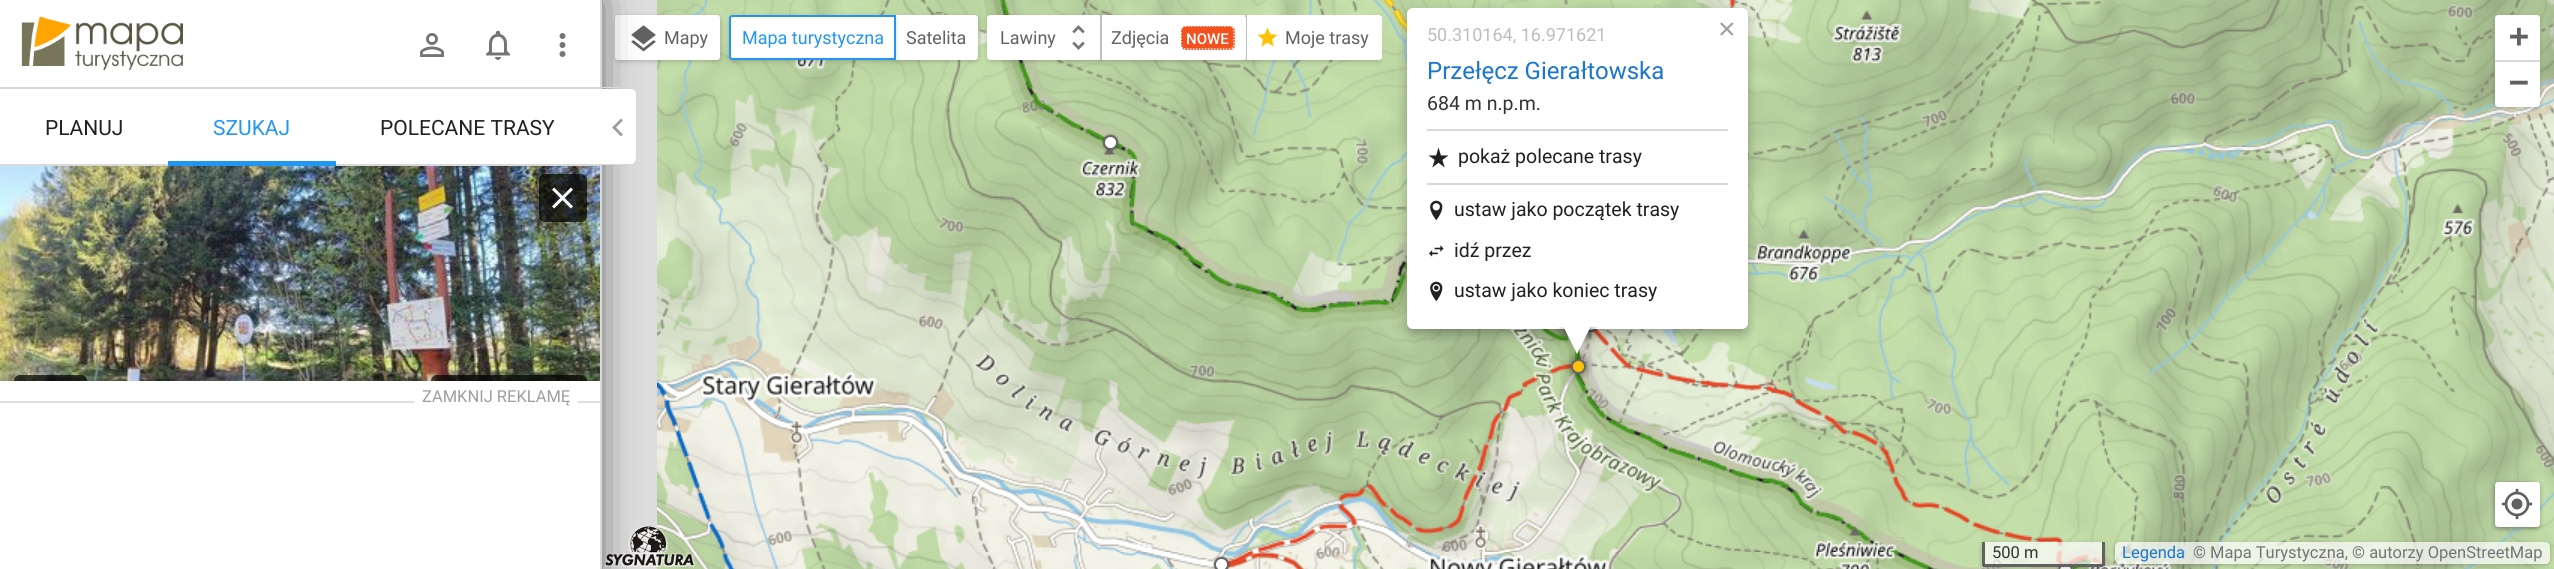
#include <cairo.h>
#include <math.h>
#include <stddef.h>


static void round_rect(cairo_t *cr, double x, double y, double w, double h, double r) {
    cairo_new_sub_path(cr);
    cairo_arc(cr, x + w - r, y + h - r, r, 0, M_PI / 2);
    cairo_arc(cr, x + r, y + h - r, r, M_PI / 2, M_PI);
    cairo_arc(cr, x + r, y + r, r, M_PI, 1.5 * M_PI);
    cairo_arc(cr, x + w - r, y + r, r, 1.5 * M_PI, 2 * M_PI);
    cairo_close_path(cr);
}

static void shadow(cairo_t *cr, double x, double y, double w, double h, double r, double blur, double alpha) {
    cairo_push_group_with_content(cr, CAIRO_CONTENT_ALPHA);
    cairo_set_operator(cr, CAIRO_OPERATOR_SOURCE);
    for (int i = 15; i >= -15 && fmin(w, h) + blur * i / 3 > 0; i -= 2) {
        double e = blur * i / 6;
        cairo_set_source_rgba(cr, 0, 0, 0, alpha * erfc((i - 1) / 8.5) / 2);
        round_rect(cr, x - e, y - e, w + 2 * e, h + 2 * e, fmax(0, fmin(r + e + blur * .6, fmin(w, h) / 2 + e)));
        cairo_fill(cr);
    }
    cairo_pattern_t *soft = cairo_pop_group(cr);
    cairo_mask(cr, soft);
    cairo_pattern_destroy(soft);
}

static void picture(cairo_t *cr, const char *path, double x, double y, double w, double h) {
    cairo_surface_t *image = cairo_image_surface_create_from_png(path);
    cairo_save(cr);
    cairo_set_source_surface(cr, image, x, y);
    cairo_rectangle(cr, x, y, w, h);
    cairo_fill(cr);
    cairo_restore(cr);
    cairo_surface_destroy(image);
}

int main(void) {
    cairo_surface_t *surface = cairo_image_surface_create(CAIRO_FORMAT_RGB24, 2554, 569);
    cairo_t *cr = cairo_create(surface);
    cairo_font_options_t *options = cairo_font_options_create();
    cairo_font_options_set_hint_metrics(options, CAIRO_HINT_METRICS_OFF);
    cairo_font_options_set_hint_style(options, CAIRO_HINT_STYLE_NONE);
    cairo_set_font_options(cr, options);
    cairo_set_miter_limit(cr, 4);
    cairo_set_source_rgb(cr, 0.867, 0.867, 0.867);
    cairo_paint(cr);
    picture(cr, "img7.png", 657, 0, 384, 168);
    cairo_set_source_rgb(cr, 0, 0, 0);
    shadow(cr, 617, 18, 102, 42, 1.5, 3, 0.3);
    cairo_set_source_rgb(cr, 1, 1, 1);
    round_rect(cr, 615, 15, 105, 45, 3);
    cairo_fill(cr);
    picture(cr, "img26.png", 631, 25, 25, 27);
    picture(cr, "img12.png", 657, 168, 384, 384);
    picture(cr, "img17.png", 657, 552, 384, 17);
    picture(cr, "img29.png", 604, 525, 92, 42);
    cairo_set_source_rgb(cr, 0, 0, 0);
    shadow(cr, -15, 0, 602, 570, 0, 22.5, 1);
    cairo_set_source_rgb(cr, 1, 1, 1);
    cairo_rectangle(cr, 0, 0, 600, 569);
    cairo_fill(cr);
    cairo_set_source_rgb(cr, 0.851, 0.851, 0.851);
    cairo_rectangle(cr, 600, 0, 2, 569);
    cairo_fill(cr);
    cairo_rectangle(cr, 0, 87, 600, 2);
    cairo_fill(cr);
    picture(cr, "img1.png", 21, 16, 162, 54);
    picture(cr, "img2.png", 420, 33, 24, 24);
    picture(cr, "img3.png", 486, 30, 24, 30);
    picture(cr, "img4.png", 559, 33, 7, 24);
    cairo_rectangle(cr, 0, 164, 600, 2);
    cairo_fill(cr);
    cairo_select_font_face(cr, "Roboto", CAIRO_FONT_SLANT_NORMAL, CAIRO_FONT_WEIGHT_NORMAL);
    cairo_set_font_size(cr, 21);
    cairo_set_source_rgb(cr, 0.129, 0.129, 0.129);
    cairo_move_to(cr, 45, 135);
    cairo_show_text(cr, "PLANUJ");
    cairo_set_source_rgb(cr, 0.129, 0.588, 0.953);
    cairo_rectangle(cr, 168, 161, 168, 5);
    cairo_fill(cr);
    cairo_move_to(cr, 213, 135);
    cairo_show_text(cr, "SZUKAJ");
    cairo_set_source_rgb(cr, 0.129, 0.129, 0.129);
    cairo_move_to(cr, 380, 135);
    cairo_show_text(cr, "POLECANE TRASY");
    picture(cr, "img5.png", 0, 166, 600, 215);
    cairo_set_source_rgba(cr, 0, 0, 0, 0.7);
    cairo_new_path(cr);
    cairo_move_to(cr, 20, 375);
    cairo_line_to(cr, 81, 375);
    cairo_curve_to(cr, 84.5, 375, 87, 377.5, 87, 381);
    cairo_line_to(cr, 14, 381);
    cairo_curve_to(cr, 14, 377.5, 16.5, 375, 20, 375);
    cairo_close_path(cr);
    cairo_fill(cr);
    cairo_new_path(cr);
    cairo_move_to(cr, 437, 375);
    cairo_line_to(cr, 581, 375);
    cairo_curve_to(cr, 584.5, 375, 587, 377.5, 587, 381);
    cairo_line_to(cr, 431, 381);
    cairo_curve_to(cr, 431, 377.5, 433.5, 375, 437, 375);
    cairo_close_path(cr);
    cairo_fill(cr);
    round_rect(cr, 539, 174, 48, 48, 6);
    cairo_fill(cr);
    picture(cr, "img6.png", 552, 187, 21, 22);
    cairo_set_source_rgb(cr, 1, 1, 1);
    cairo_new_path(cr);
    cairo_move_to(cr, 600, 89);
    cairo_line_to(cr, 631, 89);
    cairo_curve_to(cr, 634, 89, 636, 91, 636, 94);
    cairo_line_to(cr, 636, 159);
    cairo_curve_to(cr, 636, 162, 634, 164, 631, 164);
    cairo_line_to(cr, 600, 164);
    cairo_close_path(cr);
    cairo_fill(cr);
    cairo_set_source_rgb(cr, 0.851, 0.851, 0.851);
    cairo_set_fill_rule(cr, CAIRO_FILL_RULE_EVEN_ODD);
    cairo_new_path(cr);
    cairo_move_to(cr, 600, 87);
    cairo_line_to(cr, 632, 87);
    cairo_curve_to(cr, 635, 87, 638, 90, 638, 93);
    cairo_line_to(cr, 638, 159);
    cairo_curve_to(cr, 638, 162, 635, 165, 632, 165);
    cairo_line_to(cr, 600, 165);
    cairo_close_path(cr);
    cairo_move_to(cr, 600, 88);
    cairo_line_to(cr, 632, 88);
    cairo_curve_to(cr, 634, 88, 636, 91, 636, 93);
    cairo_line_to(cr, 636, 159);
    cairo_curve_to(cr, 636, 161, 634, 164, 632, 164);
    cairo_line_to(cr, 600, 164);
    cairo_close_path(cr);
    cairo_fill(cr);
    cairo_set_source_rgb(cr, 0.62, 0.62, 0.62);
    cairo_set_fill_rule(cr, CAIRO_FILL_RULE_WINDING);
    cairo_new_path(cr);
    cairo_move_to(cr, 623, 120.5);
    cairo_line_to(cr, 616, 127.5);
    cairo_line_to(cr, 623, 134.5);
    cairo_line_to(cr, 621, 136.5);
    cairo_line_to(cr, 612, 127.5);
    cairo_line_to(cr, 621, 118.5);
    cairo_close_path(cr);
    cairo_fill(cr);
    cairo_set_source_rgb(cr, 0.878, 0.878, 0.878);
    cairo_rectangle(cr, 0, 401, 600, 2);
    cairo_fill(cr);
    cairo_set_source_rgb(cr, 1, 1, 1);
    cairo_rectangle(cr, 414, 401, 164, 2);
    cairo_fill(cr);
    cairo_set_font_size(cr, 16.5);
    cairo_set_source_rgb(cr, 0.62, 0.62, 0.62);
    cairo_move_to(cr, 422, 402);
    cairo_show_text(cr, "ZAMKNIJ REKLAMĘ");
    picture(cr, "img8.png", 1041, 0, 384, 168);
    picture(cr, "img9.png", 1425, 0, 384, 168);
    picture(cr, "img10.png", 1809, 0, 384, 168);
    picture(cr, "img11.png", 2193, 0, 361, 168);
    picture(cr, "img13.png", 1041, 168, 384, 384);
    picture(cr, "img14.png", 1425, 168, 384, 384);
    picture(cr, "img15.png", 1809, 168, 384, 384);
    picture(cr, "img16.png", 2193, 168, 361, 384);
    picture(cr, "img18.png", 1041, 552, 384, 17);
    picture(cr, "img19.png", 1425, 552, 384, 17);
    picture(cr, "img20.png", 1809, 552, 384, 17);
    picture(cr, "img21.png", 2193, 552, 361, 17);
    cairo_set_source_rgb(cr, 0, 0, 0);
    shadow(cr, 1583, 317, 15, 15, 7.5, 1, 0.5);
    cairo_set_source_rgb(cr, 1, 1, 1);
    cairo_arc(cr, 1590.5, 324.5, 6.5, 0, 2 * M_PI);
    cairo_fill_preserve(cr);
    cairo_set_source_rgb(cr, 0.4, 0.4, 0.4);
    cairo_stroke(cr);
    cairo_set_source_rgb(cr, 0, 0, 0);
    shadow(cr, 1410, 17, 335, 315, 3, 7.5, 0.4);
    cairo_set_source_rgb(cr, 1, 1, 1);
    round_rect(cr, 1407, 8, 341, 321, 6);
    cairo_fill(cr);
    cairo_set_font_size(cr, 18);
    cairo_set_source_rgb(cr, 0.741, 0.741, 0.741);
    cairo_move_to(cr, 1427, 41);
    cairo_show_text(cr, "50.310164, 16.971621");
    cairo_set_font_size(cr, 24);
    cairo_set_source_rgb(cr, 0.098, 0.463, 0.824);
    cairo_move_to(cr, 1427, 79);
    cairo_show_text(cr, "Przełęcz Gierałtowska");
    cairo_set_font_size(cr, 19.5);
    cairo_set_source_rgb(cr, 0.2, 0.2, 0.2);
    cairo_move_to(cr, 1427, 110);
    cairo_show_text(cr, "684 m n.p.m.");
    cairo_set_source_rgb(cr, 0.851, 0.851, 0.851);
    cairo_rectangle(cr, 1427, 129, 301, 2);
    cairo_fill(cr);
    picture(cr, "img22.png", 1428, 147, 21, 21);
    cairo_set_source_rgb(cr, 0.129, 0.129, 0.129);
    cairo_move_to(cr, 1458, 163);
    cairo_show_text(cr, "pokaż polecane trasy");
    cairo_set_source_rgb(cr, 0.851, 0.851, 0.851);
    cairo_rectangle(cr, 1427, 183, 301, 2);
    cairo_fill(cr);
    picture(cr, "img23.png", 1430, 200, 13, 21);
    cairo_set_source_rgb(cr, 0.129, 0.129, 0.129);
    cairo_move_to(cr, 1454, 216);
    cairo_show_text(cr, "ustaw jako początek trasy");
    picture(cr, "img24.png", 1429, 245, 15, 12);
    cairo_move_to(cr, 1454, 257);
    cairo_show_text(cr, "idź przez");
    picture(cr, "img25.png", 1430, 281, 13, 21);
    cairo_move_to(cr, 1454, 297);
    cairo_show_text(cr, "ustaw jako koniec trasy");
    cairo_select_font_face(cr, "Liberation Sans", CAIRO_FONT_SLANT_NORMAL, CAIRO_FONT_WEIGHT_NORMAL);
    cairo_set_font_size(cr, 30);
    cairo_set_source_rgb(cr, 0.62, 0.62, 0.62);
    cairo_move_to(cr, 1718, 39);
    cairo_show_text(cr, "×");
    cairo_save(cr);
    cairo_rectangle(cr, 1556, 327, 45, 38);
    cairo_clip(cr);
    cairo_set_source_rgb(cr, 0, 0, 0);
    shadow(cr, 1568, 314, 21, 21, 0, 5.5, 0.7);
    cairo_restore(cr);
    cairo_set_source_rgb(cr, 0, 0, 0);
    shadow(cr, 1571, 359, 15, 15, 7.5, 4.5, 0.5);
    cairo_save(cr);
    cairo_rectangle(cr, 1556, 327, 45, 38);
    cairo_clip(cr);
    cairo_set_source_rgb(cr, 1, 1, 1);
    cairo_new_path(cr);
    cairo_move_to(cr, 1577, 294);
    cairo_line_to(cr, 1592, 324);
    cairo_line_to(cr, 1577, 354);
    cairo_line_to(cr, 1562, 324);
    cairo_close_path(cr);
    cairo_fill(cr);
    cairo_restore(cr);
    shadow(cr, 1103, 135, 15, 15, 7.5, 1, 0.5);
    cairo_set_source_rgb(cr, 1, 1, 1);
    cairo_arc(cr, 1110.5, 142.5, 6.5, 0, 2 * M_PI);
    cairo_fill_preserve(cr);
    cairo_set_source_rgb(cr, 0.4, 0.4, 0.4);
    cairo_stroke(cr);
    cairo_set_source_rgb(cr, 1, 0.757, 0.027);
    cairo_arc(cr, 1578.5, 366.5, 6.5, 0, 2 * M_PI);
    cairo_fill_preserve(cr);
    cairo_set_source_rgb(cr, 0.4, 0.4, 0.4);
    cairo_stroke(cr);
    cairo_set_source_rgb(cr, 0, 0, 0);
    shadow(cr, 1214, 557, 15, 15, 7.5, 1, 0.5);
    cairo_set_source_rgb(cr, 1, 1, 1);
    cairo_arc(cr, 1221.5, 564.5, 6.5, 0, 2 * M_PI);
    cairo_fill_preserve(cr);
    cairo_set_source_rgb(cr, 0.4, 0.4, 0.4);
    cairo_stroke(cr);
    cairo_set_source_rgb(cr, 0, 0, 0);
    shadow(cr, 2058, 563, 15, 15, 7.5, 1, 0.5);
    cairo_set_source_rgb(cr, 1, 1, 1);
    cairo_new_path(cr);
    cairo_move_to(cr, 2065.5, 563);
    cairo_curve_to(cr, 2069.5, 563, 2073, 566.5, 2073, 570.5);
    cairo_line_to(cr, 2073, 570);
    cairo_line_to(cr, 2058, 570);
    cairo_line_to(cr, 2058, 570.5);
    cairo_curve_to(cr, 2058, 566.5, 2061.5, 563, 2065.5, 563);
    cairo_close_path(cr);
    cairo_fill(cr);
    cairo_arc(cr, 2065.5, 570.5, 6.5, 0, 2 * M_PI);
    cairo_set_source_rgb(cr, 0.4, 0.4, 0.4);
    cairo_stroke(cr);
    cairo_select_font_face(cr, "Roboto", CAIRO_FONT_SLANT_NORMAL, CAIRO_FONT_WEIGHT_NORMAL);
    cairo_set_font_size(cr, 18);
    cairo_set_source_rgb(cr, 0.38, 0.38, 0.38);
    cairo_move_to(cr, 664, 44);
    cairo_show_text(cr, "Mapy");
    cairo_set_source_rgb(cr, 0, 0, 0);
    shadow(cr, 896, 18, 81, 42, 1.5, 3, 0.3);
    cairo_set_source_rgb(cr, 1, 1, 1);
    cairo_new_path(cr);
    cairo_move_to(cr, 894, 15);
    cairo_line_to(cr, 975, 15);
    cairo_curve_to(cr, 976.5, 15, 978, 16.5, 978, 18);
    cairo_line_to(cr, 978, 57);
    cairo_curve_to(cr, 978, 58.5, 976.5, 60, 975, 60);
    cairo_line_to(cr, 894, 60);
    cairo_close_path(cr);
    cairo_fill(cr);
    cairo_set_source_rgb(cr, 0, 0, 0);
    shadow(cr, 731, 18, 163, 42, 1.5, 3, 0.3);
    cairo_set_source_rgb(cr, 1, 1, 1);
    cairo_new_path(cr);
    cairo_move_to(cr, 732, 16);
    cairo_line_to(cr, 895, 16);
    cairo_line_to(cr, 895, 59);
    cairo_line_to(cr, 732, 59);
    cairo_curve_to(cr, 731, 59, 730, 58, 730, 57);
    cairo_line_to(cr, 730, 18);
    cairo_curve_to(cr, 730, 17, 731, 16, 732, 16);
    cairo_close_path(cr);
    cairo_fill_preserve(cr);
    cairo_set_source_rgb(cr, 0.129, 0.588, 0.953);
    cairo_stroke(cr);
    cairo_move_to(cr, 742, 44);
    cairo_show_text(cr, "Mapa turystyczna");
    cairo_set_source_rgb(cr, 0.38, 0.38, 0.38);
    cairo_move_to(cr, 906, 44);
    cairo_show_text(cr, "Satelita");
    cairo_set_source_rgb(cr, 0, 0, 0);
    shadow(cr, 989, 18, 111, 42, 1.5, 3, 0.3);
    cairo_set_source_rgb(cr, 1, 1, 1);
    cairo_new_path(cr);
    cairo_move_to(cr, 990, 15);
    cairo_line_to(cr, 1101, 15);
    cairo_line_to(cr, 1101, 60);
    cairo_line_to(cr, 990, 60);
    cairo_curve_to(cr, 988.5, 60, 987, 58.5, 987, 57);
    cairo_line_to(cr, 987, 18);
    cairo_curve_to(cr, 987, 16.5, 988.5, 15, 990, 15);
    cairo_close_path(cr);
    cairo_fill(cr);
    cairo_set_source_rgb(cr, 0.38, 0.38, 0.38);
    cairo_move_to(cr, 1000, 44);
    cairo_show_text(cr, "Lawiny");
    picture(cr, "img27.png", 1072, 25, 13, 25);
    cairo_set_source_rgb(cr, 0, 0, 0);
    shadow(cr, 1101, 18, 144, 42, 0, 3, 0.3);
    cairo_set_source_rgb(cr, 1, 1, 1);
    cairo_rectangle(cr, 1096, 17, 4, 42);
    cairo_fill(cr);
    cairo_set_source_rgb(cr, 0.753, 0.753, 0.753);
    cairo_rectangle(cr, 1100, 15, 2, 45);
    cairo_fill(cr);
    cairo_set_source_rgb(cr, 1, 1, 1);
    cairo_rectangle(cr, 1102, 15, 143, 45);
    cairo_fill(cr);
    cairo_save(cr);
    cairo_rectangle(cr, 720, 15, 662, 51);
    cairo_clip(cr);
    cairo_set_source_rgb(cr, 0, 0, 0);
    shadow(cr, 1247, 18, 133, 42, 1.5, 3, 0.3);
    cairo_restore(cr);
    cairo_new_path(cr);
    cairo_move_to(cr, 1245, 15);
    cairo_line_to(cr, 1379, 15);
    cairo_curve_to(cr, 1380.5, 15, 1382, 16.5, 1382, 18);
    cairo_line_to(cr, 1382, 57);
    cairo_curve_to(cr, 1382, 58.5, 1380.5, 60, 1379, 60);
    cairo_line_to(cr, 1245, 60);
    cairo_close_path(cr);
    cairo_fill(cr);
    cairo_set_source_rgb(cr, 0.753, 0.753, 0.753);
    cairo_rectangle(cr, 1245, 15, 2, 45);
    cairo_fill(cr);
    cairo_set_source_rgb(cr, 0.38, 0.38, 0.38);
    cairo_move_to(cr, 1111, 44);
    cairo_show_text(cr, "Zdjęcia");
    cairo_set_source_rgb(cr, 0.957, 0.318, 0.118);
    round_rect(cr, 1181, 26, 54, 24, 5);
    cairo_fill(cr);
    cairo_new_path(cr);
    cairo_move_to(cr, 1185, 26);
    cairo_line_to(cr, 1230, 26);
    cairo_curve_to(cr, 1232, 26, 1234, 28, 1234, 30);
    cairo_line_to(cr, 1234, 45);
    cairo_curve_to(cr, 1234, 47, 1232, 49, 1230, 49);
    cairo_line_to(cr, 1185, 49);
    cairo_curve_to(cr, 1183, 49, 1181, 47, 1181, 45);
    cairo_line_to(cr, 1181, 30);
    cairo_curve_to(cr, 1181, 28, 1183, 26, 1185, 26);
    cairo_close_path(cr);
    cairo_set_source_rgb(cr, 1, 1, 1);
    cairo_set_line_width(cr, 1.5);
    cairo_set_dash(cr, (double[]){1.5, 1.5}, 2, 0);
    cairo_stroke(cr);
    cairo_select_font_face(cr, "Roboto Medium", CAIRO_FONT_SLANT_NORMAL, CAIRO_FONT_WEIGHT_NORMAL);
    cairo_set_font_size(cr, 15);
    cairo_move_to(cr, 1186, 44);
    cairo_show_text(cr, "NOWE");
    cairo_rectangle(cr, 1242, 17, 4, 42);
    cairo_fill(cr);
    picture(cr, "img28.png", 1257, 27, 21, 20);
    cairo_select_font_face(cr, "Roboto", CAIRO_FONT_SLANT_NORMAL, CAIRO_FONT_WEIGHT_NORMAL);
    cairo_set_font_size(cr, 18);
    cairo_set_source_rgb(cr, 0.38, 0.38, 0.38);
    cairo_move_to(cr, 1285, 44);
    cairo_show_text(cr, "Moje trasy");
    cairo_set_source_rgb(cr, 0, 0, 0);
    shadow(cr, 2496, 18, 42, 89, 1.5, 3, 0.3);
    cairo_set_source_rgb(cr, 1, 1, 1);
    cairo_new_path(cr);
    cairo_move_to(cr, 2498, 15);
    cairo_line_to(cr, 2537, 15);
    cairo_curve_to(cr, 2538.5, 15, 2540, 16.5, 2540, 18);
    cairo_line_to(cr, 2540, 62);
    cairo_line_to(cr, 2495, 62);
    cairo_line_to(cr, 2495, 18);
    cairo_curve_to(cr, 2495, 16.5, 2496.5, 15, 2498, 15);
    cairo_close_path(cr);
    cairo_fill(cr);
    cairo_set_source_rgb(cr, 0.851, 0.851, 0.851);
    cairo_rectangle(cr, 2495, 60, 45, 2);
    cairo_fill(cr);
    cairo_select_font_face(cr, "DejaVu Sans Mono", CAIRO_FONT_SLANT_NORMAL, CAIRO_FONT_WEIGHT_BOLD);
    cairo_set_font_size(cr, 33);
    cairo_set_source_rgb(cr, 0.38, 0.38, 0.38);
    cairo_move_to(cr, 2509, 47);
    cairo_show_text(cr, "+");
    cairo_set_source_rgb(cr, 1, 1, 1);
    cairo_new_path(cr);
    cairo_move_to(cr, 2495, 62);
    cairo_line_to(cr, 2540, 62);
    cairo_line_to(cr, 2540, 104);
    cairo_curve_to(cr, 2540, 105.5, 2538.5, 107, 2537, 107);
    cairo_line_to(cr, 2498, 107);
    cairo_curve_to(cr, 2496.5, 107, 2495, 105.5, 2495, 104);
    cairo_close_path(cr);
    cairo_fill(cr);
    cairo_set_source_rgb(cr, 0.38, 0.38, 0.38);
    cairo_move_to(cr, 2509, 93);
    cairo_show_text(cr, "−");
    cairo_set_source_rgb(cr, 0, 0, 0);
    shadow(cr, 2496, 485, 42, 42, 1.5, 3, 0.3);
    shadow(cr, 2496, 485, 42, 42, 1.5, 3, 0.3);
    cairo_set_source_rgb(cr, 1, 1, 1);
    round_rect(cr, 2495, 482, 45, 45, 3);
    cairo_fill(cr);
    picture(cr, "img30.png", 2501, 488, 32, 32);
    cairo_save(cr);
    cairo_set_fill_rule(cr, CAIRO_FILL_RULE_EVEN_ODD);
    cairo_new_path(cr);
    cairo_move_to(cr, 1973, 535);
    cairo_line_to(cr, 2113, 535);
    cairo_line_to(cr, 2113, 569);
    cairo_line_to(cr, 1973, 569);
    cairo_close_path(cr);
    cairo_move_to(cr, 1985, 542);
    cairo_line_to(cr, 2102, 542);
    cairo_curve_to(cr, 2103.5, 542, 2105, 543.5, 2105, 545);
    cairo_line_to(cr, 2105, 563);
    cairo_curve_to(cr, 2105, 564.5, 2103.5, 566, 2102, 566);
    cairo_line_to(cr, 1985, 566);
    cairo_curve_to(cr, 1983.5, 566, 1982, 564.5, 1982, 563);
    cairo_line_to(cr, 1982, 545);
    cairo_curve_to(cr, 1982, 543.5, 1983.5, 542, 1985, 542);
    cairo_close_path(cr);
    cairo_clip(cr);
    cairo_set_source_rgb(cr, 0, 0, 0);
    shadow(cr, 1983, 545, 120, 21, 1.5, 3, 0.3);
    cairo_restore(cr);
    cairo_set_source_rgba(cr, 1, 1, 1, 0.7);
    cairo_new_path(cr);
    cairo_move_to(cr, 1982, 542);
    cairo_line_to(cr, 2105, 542);
    cairo_line_to(cr, 2105, 564);
    cairo_curve_to(cr, 2105, 565.5, 2103.5, 567, 2102, 567);
    cairo_line_to(cr, 1985, 567);
    cairo_curve_to(cr, 1983.5, 567, 1982, 565.5, 1982, 564);
    cairo_close_path(cr);
    cairo_fill(cr);
    cairo_set_source_rgb(cr, 0.38, 0.38, 0.38);
    cairo_rectangle(cr, 2102, 542, 3, 24);
    cairo_fill(cr);
    cairo_rectangle(cr, 1983, 564, 120, 3);
    cairo_fill(cr);
    cairo_rectangle(cr, 1982, 542, 3, 24);
    cairo_fill(cr);
    cairo_select_font_face(cr, "Roboto", CAIRO_FONT_SLANT_NORMAL, CAIRO_FONT_WEIGHT_NORMAL);
    cairo_set_font_size(cr, 16.5);
    cairo_set_source_rgb(cr, 0.2, 0.2, 0.2);
    cairo_move_to(cr, 1992, 558);
    cairo_show_text(cr, "500 m");
    cairo_save(cr);
    cairo_set_fill_rule(cr, CAIRO_FILL_RULE_EVEN_ODD);
    cairo_new_path(cr);
    cairo_move_to(cr, 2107, 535);
    cairo_line_to(cr, 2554, 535);
    cairo_line_to(cr, 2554, 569);
    cairo_line_to(cr, 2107, 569);
    cairo_close_path(cr);
    cairo_move_to(cr, 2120, 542);
    cairo_line_to(cr, 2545, 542);
    cairo_curve_to(cr, 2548, 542, 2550, 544, 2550, 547);
    cairo_line_to(cr, 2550, 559);
    cairo_curve_to(cr, 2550, 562, 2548, 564, 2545, 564);
    cairo_line_to(cr, 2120, 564);
    cairo_curve_to(cr, 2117, 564, 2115, 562, 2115, 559);
    cairo_line_to(cr, 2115, 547);
    cairo_curve_to(cr, 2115, 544, 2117, 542, 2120, 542);
    cairo_close_path(cr);
    cairo_clip(cr);
    cairo_set_source_rgb(cr, 0, 0, 0);
    shadow(cr, 2117, 545, 432, 19, 3, 3, 0.3);
    cairo_restore(cr);
    cairo_set_source_rgba(cr, 1, 1, 1, 0.7);
    round_rect(cr, 2115, 542, 435, 22, 5);
    cairo_fill(cr);
    cairo_set_source_rgb(cr, 0.098, 0.463, 0.824);
    cairo_move_to(cr, 2122, 558);
    cairo_show_text(cr, "Legenda");
    cairo_set_source_rgb(cr, 0.459, 0.459, 0.459);
    cairo_move_to(cr, 2193, 558);
    cairo_show_text(cr, "© Mapa Turystyczna, © autorzy OpenStreetMap");
    cairo_surface_write_to_png(surface, "page.png");
    cairo_font_options_destroy(options);
    cairo_destroy(cr);
    cairo_surface_destroy(surface);
    return 0;
}
